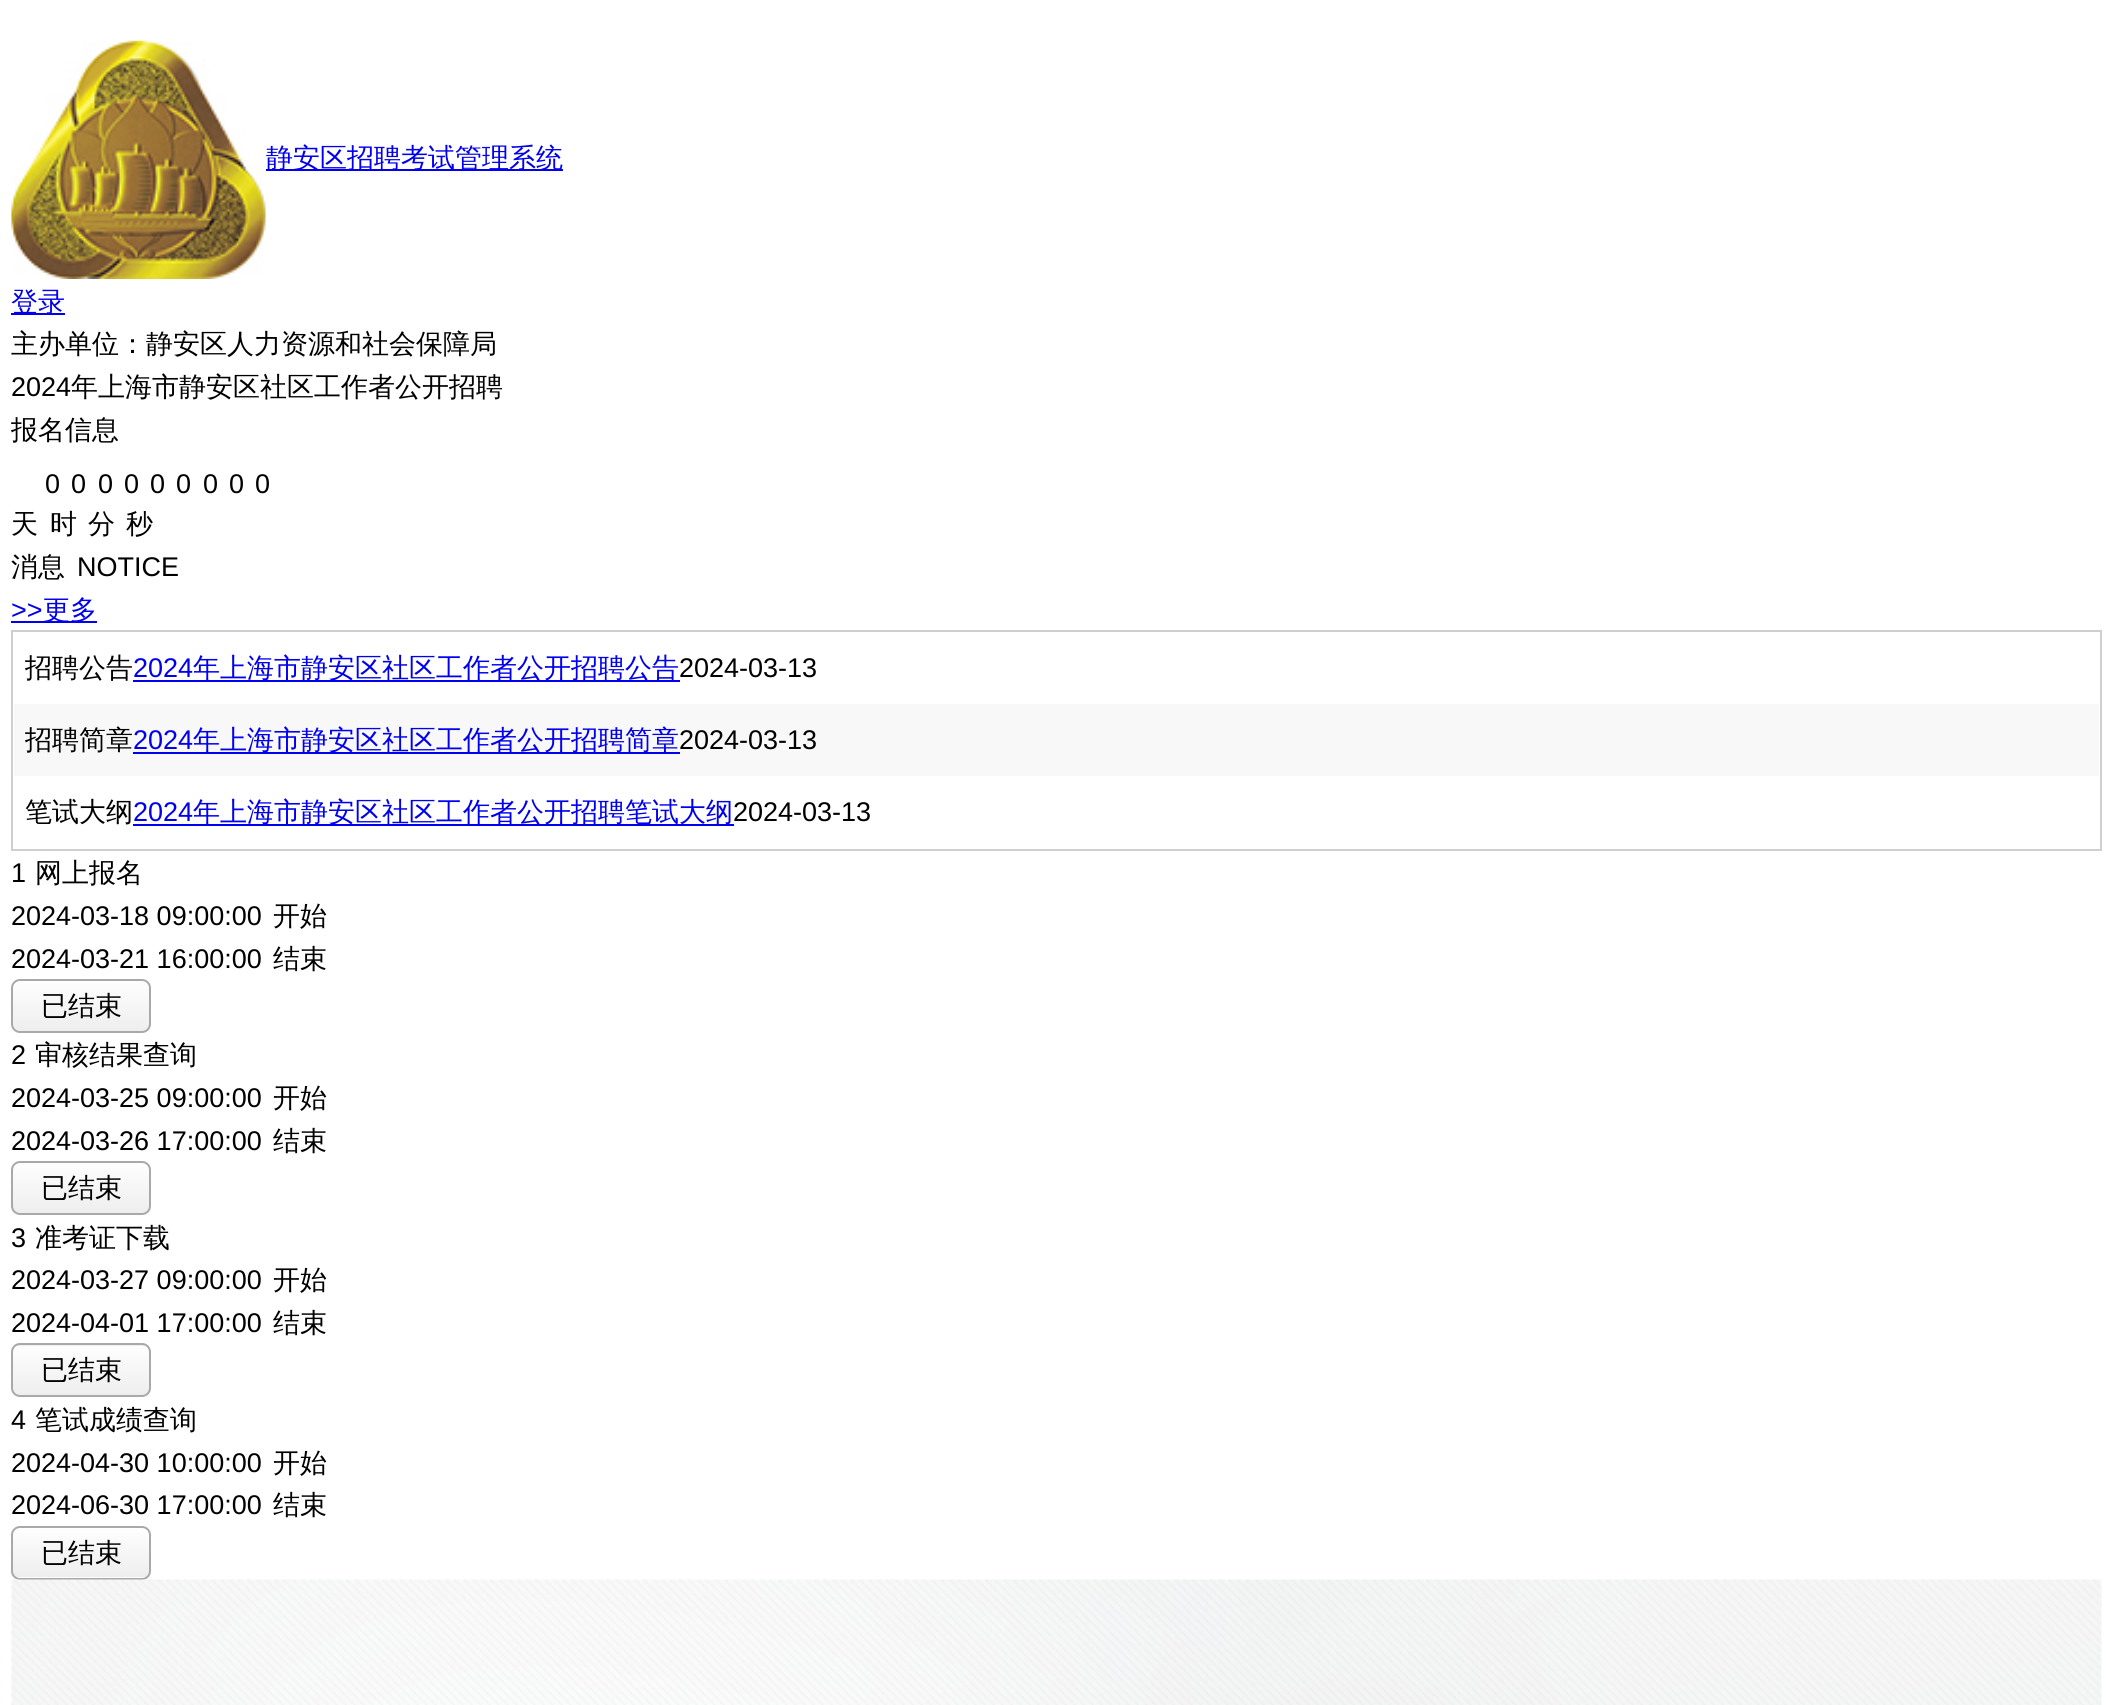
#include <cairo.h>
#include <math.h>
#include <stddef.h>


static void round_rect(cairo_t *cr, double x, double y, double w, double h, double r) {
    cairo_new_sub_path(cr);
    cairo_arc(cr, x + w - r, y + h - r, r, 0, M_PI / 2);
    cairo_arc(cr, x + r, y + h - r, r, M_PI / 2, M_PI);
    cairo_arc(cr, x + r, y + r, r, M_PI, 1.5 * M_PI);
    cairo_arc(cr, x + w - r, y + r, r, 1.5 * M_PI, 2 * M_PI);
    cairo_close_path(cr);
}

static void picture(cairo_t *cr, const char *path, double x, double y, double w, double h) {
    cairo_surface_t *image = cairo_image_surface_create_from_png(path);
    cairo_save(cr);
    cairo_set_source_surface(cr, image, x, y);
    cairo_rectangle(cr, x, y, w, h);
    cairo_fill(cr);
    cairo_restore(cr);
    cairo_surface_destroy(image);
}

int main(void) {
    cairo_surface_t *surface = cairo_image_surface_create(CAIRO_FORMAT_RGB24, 2111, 1705);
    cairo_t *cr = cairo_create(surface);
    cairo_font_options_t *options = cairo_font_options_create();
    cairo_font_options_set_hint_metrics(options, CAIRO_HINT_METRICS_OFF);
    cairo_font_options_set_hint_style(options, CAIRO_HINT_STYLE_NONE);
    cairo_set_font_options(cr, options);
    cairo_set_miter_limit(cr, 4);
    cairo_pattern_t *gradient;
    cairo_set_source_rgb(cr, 1, 1, 1);
    cairo_paint(cr);
    picture(cr, "img1.png", 11, 40, 255, 239);
    cairo_set_source_rgb(cr, 0, 0, 0.933);
    cairo_rectangle(cr, 266, 169, 297, 2);
    cairo_fill(cr);
    cairo_select_font_face(cr, "WenQuanYi Zen Hei Medium", CAIRO_FONT_SLANT_NORMAL, CAIRO_FONT_WEIGHT_NORMAL);
    cairo_set_font_size(cr, 27);
    cairo_move_to(cr, 266, 167);
    cairo_show_text(cr, "静安区招聘考试管理系统");
    cairo_rectangle(cr, 11, 313, 54, 2);
    cairo_fill(cr);
    cairo_move_to(cr, 11, 311);
    cairo_show_text(cr, "登录");
    cairo_set_source_rgb(cr, 0, 0, 0);
    cairo_move_to(cr, 11, 353);
    cairo_show_text(cr, "主办单位：静安区人力资源和社会保障局");
    cairo_select_font_face(cr, "Liberation Sans", CAIRO_FONT_SLANT_NORMAL, CAIRO_FONT_WEIGHT_NORMAL);
    cairo_move_to(cr, 11, 396);
    cairo_show_text(cr, "2024");
    cairo_select_font_face(cr, "WenQuanYi Zen Hei Medium", CAIRO_FONT_SLANT_NORMAL, CAIRO_FONT_WEIGHT_NORMAL);
    cairo_move_to(cr, 71, 396);
    cairo_show_text(cr, "年上海市静安区社区工作者公开招聘");
    cairo_move_to(cr, 11, 439);
    cairo_show_text(cr, "报名信息");
    cairo_select_font_face(cr, "Liberation Sans", CAIRO_FONT_SLANT_NORMAL, CAIRO_FONT_WEIGHT_NORMAL);
    cairo_move_to(cr, 45, 493);
    cairo_show_text(cr, "0");
    cairo_move_to(cr, 71, 493);
    cairo_show_text(cr, "0");
    cairo_move_to(cr, 98, 493);
    cairo_show_text(cr, "0");
    cairo_move_to(cr, 124, 493);
    cairo_show_text(cr, "0");
    cairo_move_to(cr, 150, 493);
    cairo_show_text(cr, "0");
    cairo_move_to(cr, 176, 493);
    cairo_show_text(cr, "0");
    cairo_move_to(cr, 203, 493);
    cairo_show_text(cr, "0");
    cairo_move_to(cr, 229, 493);
    cairo_show_text(cr, "0");
    cairo_move_to(cr, 255, 493);
    cairo_show_text(cr, "0");
    cairo_select_font_face(cr, "WenQuanYi Zen Hei Medium", CAIRO_FONT_SLANT_NORMAL, CAIRO_FONT_WEIGHT_NORMAL);
    cairo_move_to(cr, 11, 533);
    cairo_show_text(cr, "天");
    cairo_move_to(cr, 50, 533);
    cairo_show_text(cr, "时");
    cairo_move_to(cr, 88, 533);
    cairo_show_text(cr, "分");
    cairo_move_to(cr, 126, 533);
    cairo_show_text(cr, "秒");
    cairo_move_to(cr, 11, 576);
    cairo_show_text(cr, "消息");
    cairo_select_font_face(cr, "Liberation Sans", CAIRO_FONT_SLANT_NORMAL, CAIRO_FONT_WEIGHT_NORMAL);
    cairo_move_to(cr, 77, 576);
    cairo_show_text(cr, "NOTICE");
    cairo_set_source_rgb(cr, 0, 0, 0.933);
    cairo_move_to(cr, 11, 619);
    cairo_show_text(cr, ">>");
    cairo_rectangle(cr, 11, 621, 86, 2);
    cairo_fill(cr);
    cairo_select_font_face(cr, "WenQuanYi Zen Hei Medium", CAIRO_FONT_SLANT_NORMAL, CAIRO_FONT_WEIGHT_NORMAL);
    cairo_move_to(cr, 43, 619);
    cairo_show_text(cr, "更多");
    cairo_rectangle(cr, 12, 631, 2089, 219);
    cairo_set_source_rgb(cr, 0.812, 0.812, 0.812);
    cairo_stroke(cr);
    cairo_set_source_rgb(cr, 0, 0, 0);
    cairo_move_to(cr, 25, 677);
    cairo_show_text(cr, "招聘公告");
    cairo_select_font_face(cr, "Liberation Sans", CAIRO_FONT_SLANT_NORMAL, CAIRO_FONT_WEIGHT_NORMAL);
    cairo_set_source_rgb(cr, 0, 0, 0.933);
    cairo_move_to(cr, 133, 677);
    cairo_show_text(cr, "2024");
    cairo_rectangle(cr, 133, 680, 547, 2);
    cairo_fill(cr);
    cairo_select_font_face(cr, "WenQuanYi Zen Hei Medium", CAIRO_FONT_SLANT_NORMAL, CAIRO_FONT_WEIGHT_NORMAL);
    cairo_move_to(cr, 193, 677);
    cairo_show_text(cr, "年上海市静安区社区工作者公开招聘公告");
    cairo_select_font_face(cr, "Liberation Sans", CAIRO_FONT_SLANT_NORMAL, CAIRO_FONT_WEIGHT_NORMAL);
    cairo_set_source_rgb(cr, 0, 0, 0);
    cairo_move_to(cr, 679, 677);
    cairo_show_text(cr, "2024-03-13");
    cairo_set_source_rgb(cr, 0.969, 0.969, 0.969);
    cairo_rectangle(cr, 14, 704, 2085, 72);
    cairo_fill(cr);
    cairo_select_font_face(cr, "WenQuanYi Zen Hei Medium", CAIRO_FONT_SLANT_NORMAL, CAIRO_FONT_WEIGHT_NORMAL);
    cairo_set_source_rgb(cr, 0, 0, 0);
    cairo_move_to(cr, 25, 749);
    cairo_show_text(cr, "招聘简章");
    cairo_select_font_face(cr, "Liberation Sans", CAIRO_FONT_SLANT_NORMAL, CAIRO_FONT_WEIGHT_NORMAL);
    cairo_set_source_rgb(cr, 0, 0, 0.933);
    cairo_move_to(cr, 133, 749);
    cairo_show_text(cr, "2024");
    cairo_rectangle(cr, 133, 752, 547, 2);
    cairo_fill(cr);
    cairo_select_font_face(cr, "WenQuanYi Zen Hei Medium", CAIRO_FONT_SLANT_NORMAL, CAIRO_FONT_WEIGHT_NORMAL);
    cairo_move_to(cr, 193, 749);
    cairo_show_text(cr, "年上海市静安区社区工作者公开招聘简章");
    cairo_select_font_face(cr, "Liberation Sans", CAIRO_FONT_SLANT_NORMAL, CAIRO_FONT_WEIGHT_NORMAL);
    cairo_set_source_rgb(cr, 0, 0, 0);
    cairo_move_to(cr, 679, 749);
    cairo_show_text(cr, "2024-03-13");
    cairo_select_font_face(cr, "WenQuanYi Zen Hei Medium", CAIRO_FONT_SLANT_NORMAL, CAIRO_FONT_WEIGHT_NORMAL);
    cairo_move_to(cr, 25, 821);
    cairo_show_text(cr, "笔试大纲");
    cairo_select_font_face(cr, "Liberation Sans", CAIRO_FONT_SLANT_NORMAL, CAIRO_FONT_WEIGHT_NORMAL);
    cairo_set_source_rgb(cr, 0, 0, 0.933);
    cairo_move_to(cr, 133, 821);
    cairo_show_text(cr, "2024");
    cairo_rectangle(cr, 133, 824, 601, 2);
    cairo_fill(cr);
    cairo_select_font_face(cr, "WenQuanYi Zen Hei Medium", CAIRO_FONT_SLANT_NORMAL, CAIRO_FONT_WEIGHT_NORMAL);
    cairo_move_to(cr, 193, 821);
    cairo_show_text(cr, "年上海市静安区社区工作者公开招聘笔试大纲");
    cairo_select_font_face(cr, "Liberation Sans", CAIRO_FONT_SLANT_NORMAL, CAIRO_FONT_WEIGHT_NORMAL);
    cairo_set_source_rgb(cr, 0, 0, 0);
    cairo_move_to(cr, 733, 821);
    cairo_show_text(cr, "2024-03-13");
    cairo_move_to(cr, 11, 882);
    cairo_show_text(cr, "1");
    cairo_select_font_face(cr, "WenQuanYi Zen Hei Medium", CAIRO_FONT_SLANT_NORMAL, CAIRO_FONT_WEIGHT_NORMAL);
    cairo_move_to(cr, 35, 882);
    cairo_show_text(cr, "网上报名");
    cairo_select_font_face(cr, "Liberation Sans", CAIRO_FONT_SLANT_NORMAL, CAIRO_FONT_WEIGHT_NORMAL);
    cairo_move_to(cr, 11, 925);
    cairo_show_text(cr, "2024-03-18 09:00:00");
    cairo_select_font_face(cr, "WenQuanYi Zen Hei Medium", CAIRO_FONT_SLANT_NORMAL, CAIRO_FONT_WEIGHT_NORMAL);
    cairo_move_to(cr, 273, 925);
    cairo_show_text(cr, "开始");
    cairo_select_font_face(cr, "Liberation Sans", CAIRO_FONT_SLANT_NORMAL, CAIRO_FONT_WEIGHT_NORMAL);
    cairo_move_to(cr, 11, 968);
    cairo_show_text(cr, "2024-03-21 16:00:00");
    cairo_select_font_face(cr, "WenQuanYi Zen Hei Medium", CAIRO_FONT_SLANT_NORMAL, CAIRO_FONT_WEIGHT_NORMAL);
    cairo_move_to(cr, 273, 968);
    cairo_show_text(cr, "结束");
    cairo_save(cr);
    round_rect(cr, 11, 979, 140, 54, 9);
    cairo_clip(cr);
    gradient = cairo_pattern_create_linear(81, 981, 81, 1031);
    cairo_pattern_add_color_stop_rgba(gradient, 0, 0.996, 0.996, 0.996, 1);
    cairo_pattern_add_color_stop_rgba(gradient, 1, 0.933, 0.933, 0.933, 1);
    cairo_set_source(cr, gradient);
    cairo_pattern_destroy(gradient);
    cairo_rectangle(cr, 11, 981, 140, 50);
    cairo_fill(cr);
    cairo_restore(cr);
    round_rect(cr, 12, 980, 138, 52, 8);
    cairo_set_source_rgb(cr, 0.663, 0.663, 0.663);
    cairo_stroke(cr);
    cairo_set_source_rgb(cr, 0, 0, 0);
    cairo_move_to(cr, 41, 1015);
    cairo_show_text(cr, "已结束");
    cairo_select_font_face(cr, "Liberation Sans", CAIRO_FONT_SLANT_NORMAL, CAIRO_FONT_WEIGHT_NORMAL);
    cairo_move_to(cr, 11, 1064);
    cairo_show_text(cr, "2");
    cairo_select_font_face(cr, "WenQuanYi Zen Hei Medium", CAIRO_FONT_SLANT_NORMAL, CAIRO_FONT_WEIGHT_NORMAL);
    cairo_move_to(cr, 35, 1064);
    cairo_show_text(cr, "审核结果查询");
    cairo_select_font_face(cr, "Liberation Sans", CAIRO_FONT_SLANT_NORMAL, CAIRO_FONT_WEIGHT_NORMAL);
    cairo_move_to(cr, 11, 1107);
    cairo_show_text(cr, "2024-03-25 09:00:00");
    cairo_select_font_face(cr, "WenQuanYi Zen Hei Medium", CAIRO_FONT_SLANT_NORMAL, CAIRO_FONT_WEIGHT_NORMAL);
    cairo_move_to(cr, 273, 1107);
    cairo_show_text(cr, "开始");
    cairo_select_font_face(cr, "Liberation Sans", CAIRO_FONT_SLANT_NORMAL, CAIRO_FONT_WEIGHT_NORMAL);
    cairo_move_to(cr, 11, 1150);
    cairo_show_text(cr, "2024-03-26 17:00:00");
    cairo_select_font_face(cr, "WenQuanYi Zen Hei Medium", CAIRO_FONT_SLANT_NORMAL, CAIRO_FONT_WEIGHT_NORMAL);
    cairo_move_to(cr, 273, 1150);
    cairo_show_text(cr, "结束");
    cairo_save(cr);
    round_rect(cr, 11, 1161, 140, 54, 9);
    cairo_clip(cr);
    gradient = cairo_pattern_create_linear(81, 1163, 81, 1213);
    cairo_pattern_add_color_stop_rgba(gradient, 0, 0.996, 0.996, 0.996, 1);
    cairo_pattern_add_color_stop_rgba(gradient, 1, 0.933, 0.933, 0.933, 1);
    cairo_set_source(cr, gradient);
    cairo_pattern_destroy(gradient);
    cairo_rectangle(cr, 11, 1163, 140, 50);
    cairo_fill(cr);
    cairo_restore(cr);
    round_rect(cr, 12, 1162, 138, 52, 8);
    cairo_set_source_rgb(cr, 0.663, 0.663, 0.663);
    cairo_stroke(cr);
    cairo_set_source_rgb(cr, 0, 0, 0);
    cairo_move_to(cr, 41, 1197);
    cairo_show_text(cr, "已结束");
    cairo_select_font_face(cr, "Liberation Sans", CAIRO_FONT_SLANT_NORMAL, CAIRO_FONT_WEIGHT_NORMAL);
    cairo_move_to(cr, 11, 1247);
    cairo_show_text(cr, "3");
    cairo_select_font_face(cr, "WenQuanYi Zen Hei Medium", CAIRO_FONT_SLANT_NORMAL, CAIRO_FONT_WEIGHT_NORMAL);
    cairo_move_to(cr, 35, 1247);
    cairo_show_text(cr, "准考证下载");
    cairo_select_font_face(cr, "Liberation Sans", CAIRO_FONT_SLANT_NORMAL, CAIRO_FONT_WEIGHT_NORMAL);
    cairo_move_to(cr, 11, 1289);
    cairo_show_text(cr, "2024-03-27 09:00:00");
    cairo_select_font_face(cr, "WenQuanYi Zen Hei Medium", CAIRO_FONT_SLANT_NORMAL, CAIRO_FONT_WEIGHT_NORMAL);
    cairo_move_to(cr, 273, 1289);
    cairo_show_text(cr, "开始");
    cairo_select_font_face(cr, "Liberation Sans", CAIRO_FONT_SLANT_NORMAL, CAIRO_FONT_WEIGHT_NORMAL);
    cairo_move_to(cr, 11, 1332);
    cairo_show_text(cr, "2024-04-01 17:00:00");
    cairo_select_font_face(cr, "WenQuanYi Zen Hei Medium", CAIRO_FONT_SLANT_NORMAL, CAIRO_FONT_WEIGHT_NORMAL);
    cairo_move_to(cr, 273, 1332);
    cairo_show_text(cr, "结束");
    cairo_save(cr);
    round_rect(cr, 11, 1343, 140, 54, 9);
    cairo_clip(cr);
    gradient = cairo_pattern_create_linear(81, 1296, 81, 1346);
    cairo_pattern_add_color_stop_rgba(gradient, 0, 0.996, 0.996, 0.996, 1);
    cairo_pattern_add_color_stop_rgba(gradient, 1, 0.933, 0.933, 0.933, 1);
    cairo_set_source(cr, gradient);
    cairo_pattern_destroy(gradient);
    cairo_rectangle(cr, 11, 1343, 140, 3);
    cairo_fill(cr);
    gradient = cairo_pattern_create_linear(81, 1346, 81, 1395);
    cairo_pattern_add_color_stop_rgba(gradient, 0, 0.996, 0.996, 0.996, 1);
    cairo_pattern_add_color_stop_rgba(gradient, 1, 0.933, 0.933, 0.933, 1);
    cairo_set_source(cr, gradient);
    cairo_pattern_destroy(gradient);
    cairo_rectangle(cr, 11, 1346, 140, 49);
    cairo_fill(cr);
    cairo_restore(cr);
    round_rect(cr, 12, 1344, 138, 52, 8);
    cairo_set_source_rgb(cr, 0.663, 0.663, 0.663);
    cairo_stroke(cr);
    cairo_set_source_rgb(cr, 0, 0, 0);
    cairo_move_to(cr, 41, 1379);
    cairo_show_text(cr, "已结束");
    cairo_select_font_face(cr, "Liberation Sans", CAIRO_FONT_SLANT_NORMAL, CAIRO_FONT_WEIGHT_NORMAL);
    cairo_move_to(cr, 11, 1429);
    cairo_show_text(cr, "4");
    cairo_select_font_face(cr, "WenQuanYi Zen Hei Medium", CAIRO_FONT_SLANT_NORMAL, CAIRO_FONT_WEIGHT_NORMAL);
    cairo_move_to(cr, 35, 1429);
    cairo_show_text(cr, "笔试成绩查询");
    cairo_select_font_face(cr, "Liberation Sans", CAIRO_FONT_SLANT_NORMAL, CAIRO_FONT_WEIGHT_NORMAL);
    cairo_move_to(cr, 11, 1472);
    cairo_show_text(cr, "2024-04-30 10:00:00");
    cairo_select_font_face(cr, "WenQuanYi Zen Hei Medium", CAIRO_FONT_SLANT_NORMAL, CAIRO_FONT_WEIGHT_NORMAL);
    cairo_move_to(cr, 273, 1472);
    cairo_show_text(cr, "开始");
    cairo_select_font_face(cr, "Liberation Sans", CAIRO_FONT_SLANT_NORMAL, CAIRO_FONT_WEIGHT_NORMAL);
    cairo_move_to(cr, 11, 1514);
    cairo_show_text(cr, "2024-06-30 17:00:00");
    cairo_select_font_face(cr, "WenQuanYi Zen Hei Medium", CAIRO_FONT_SLANT_NORMAL, CAIRO_FONT_WEIGHT_NORMAL);
    cairo_move_to(cr, 273, 1514);
    cairo_show_text(cr, "结束");
    cairo_save(cr);
    round_rect(cr, 11, 1526, 140, 54, 9);
    cairo_clip(cr);
    gradient = cairo_pattern_create_linear(81, 1528, 81, 1577);
    cairo_pattern_add_color_stop_rgba(gradient, 0, 0.996, 0.996, 0.996, 1);
    cairo_pattern_add_color_stop_rgba(gradient, 1, 0.933, 0.933, 0.933, 1);
    cairo_set_source(cr, gradient);
    cairo_pattern_destroy(gradient);
    cairo_rectangle(cr, 11, 1528, 140, 49);
    cairo_fill(cr);
    cairo_restore(cr);
    round_rect(cr, 12, 1527, 138, 52, 8);
    cairo_set_source_rgb(cr, 0.663, 0.663, 0.663);
    cairo_stroke(cr);
    cairo_set_source_rgb(cr, 0, 0, 0);
    cairo_move_to(cr, 41, 1562);
    cairo_show_text(cr, "已结束");
    picture(cr, "img2.png", 11, 1579, 2091, 126);
    cairo_surface_write_to_png(surface, "page.png");
    cairo_font_options_destroy(options);
    cairo_destroy(cr);
    cairo_surface_destroy(surface);
    return 0;
}
